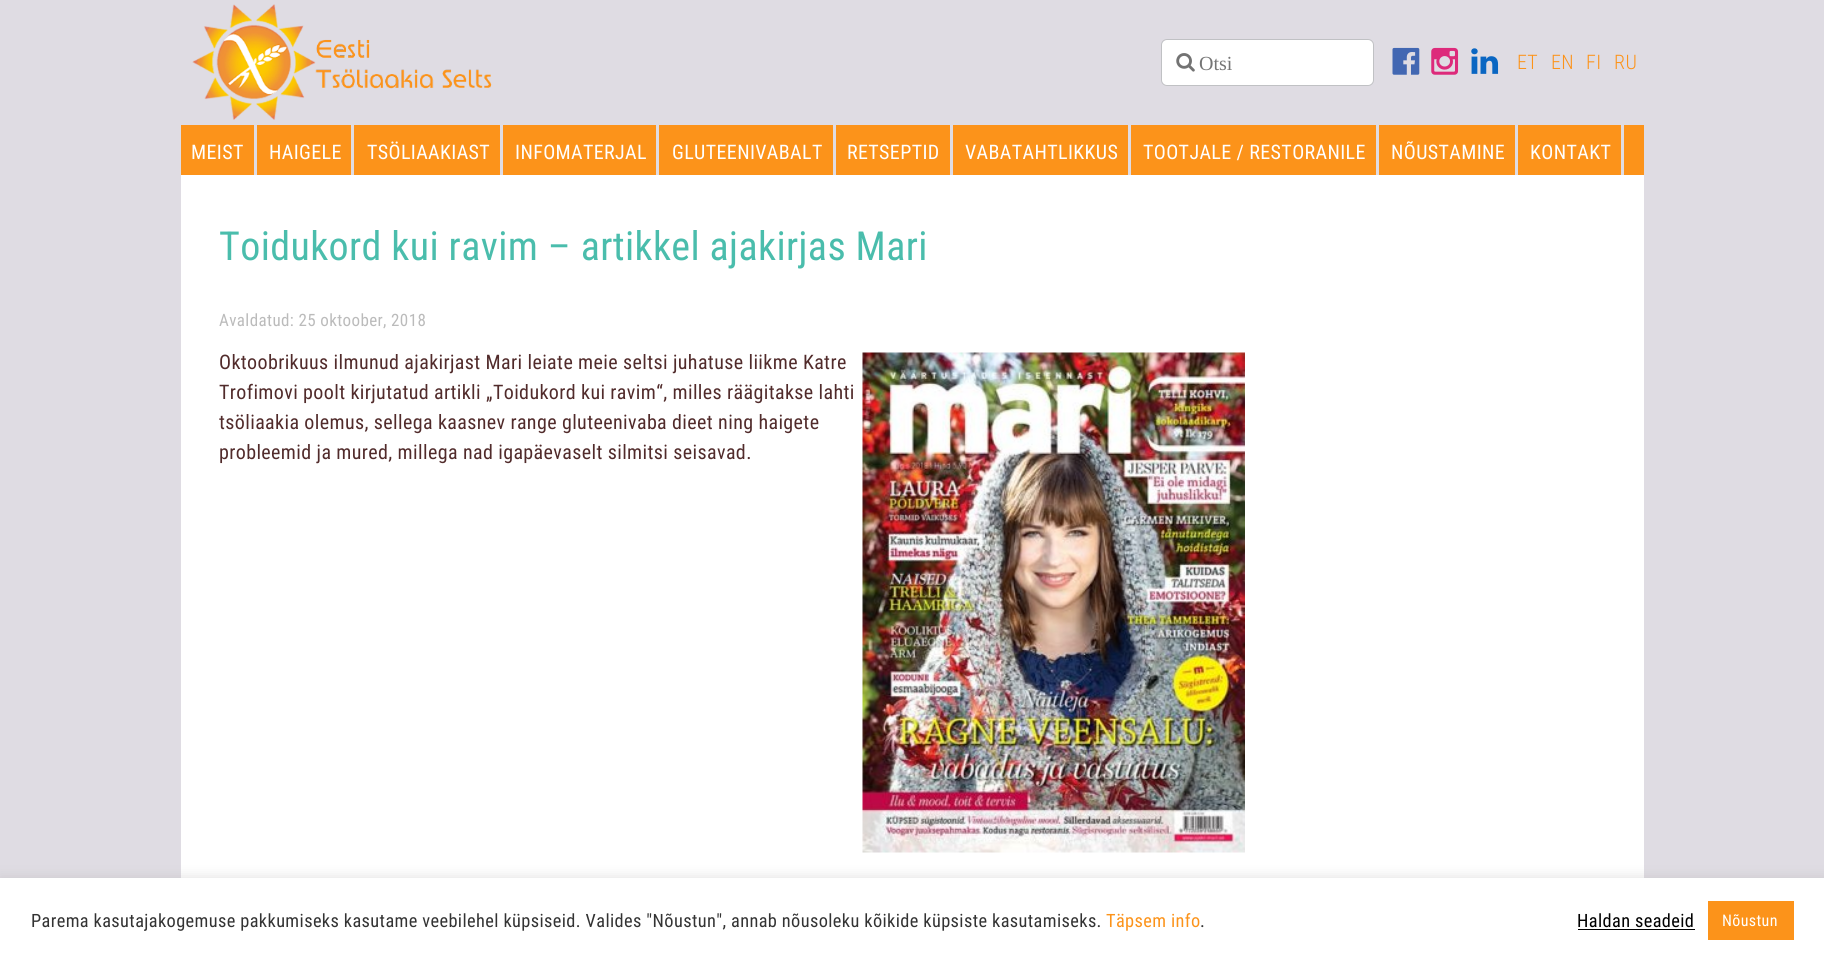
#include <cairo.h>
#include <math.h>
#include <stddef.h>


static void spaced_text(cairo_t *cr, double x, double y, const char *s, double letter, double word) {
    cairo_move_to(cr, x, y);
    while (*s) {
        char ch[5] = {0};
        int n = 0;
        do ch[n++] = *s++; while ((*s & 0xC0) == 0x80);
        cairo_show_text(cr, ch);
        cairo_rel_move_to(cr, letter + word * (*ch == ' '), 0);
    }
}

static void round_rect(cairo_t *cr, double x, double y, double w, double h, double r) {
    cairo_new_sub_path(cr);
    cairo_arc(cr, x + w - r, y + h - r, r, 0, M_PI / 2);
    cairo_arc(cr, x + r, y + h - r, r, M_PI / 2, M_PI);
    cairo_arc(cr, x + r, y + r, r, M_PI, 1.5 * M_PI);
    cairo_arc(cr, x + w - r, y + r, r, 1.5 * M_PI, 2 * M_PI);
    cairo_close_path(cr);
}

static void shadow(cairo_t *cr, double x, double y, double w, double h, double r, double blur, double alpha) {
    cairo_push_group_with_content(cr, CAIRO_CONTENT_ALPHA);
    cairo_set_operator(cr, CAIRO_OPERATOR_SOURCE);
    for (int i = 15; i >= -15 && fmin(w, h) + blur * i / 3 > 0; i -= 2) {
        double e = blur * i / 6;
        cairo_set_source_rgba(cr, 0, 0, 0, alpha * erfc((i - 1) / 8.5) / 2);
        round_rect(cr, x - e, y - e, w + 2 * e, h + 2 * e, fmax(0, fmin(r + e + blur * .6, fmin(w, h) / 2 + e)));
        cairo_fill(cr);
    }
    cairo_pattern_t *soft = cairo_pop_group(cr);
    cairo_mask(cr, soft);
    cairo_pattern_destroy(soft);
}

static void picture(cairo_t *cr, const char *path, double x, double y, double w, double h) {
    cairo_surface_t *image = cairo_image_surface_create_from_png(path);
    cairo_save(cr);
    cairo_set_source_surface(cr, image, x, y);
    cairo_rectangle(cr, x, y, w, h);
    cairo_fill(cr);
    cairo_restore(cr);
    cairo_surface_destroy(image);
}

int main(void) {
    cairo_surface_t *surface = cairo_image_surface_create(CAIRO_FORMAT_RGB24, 1824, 963);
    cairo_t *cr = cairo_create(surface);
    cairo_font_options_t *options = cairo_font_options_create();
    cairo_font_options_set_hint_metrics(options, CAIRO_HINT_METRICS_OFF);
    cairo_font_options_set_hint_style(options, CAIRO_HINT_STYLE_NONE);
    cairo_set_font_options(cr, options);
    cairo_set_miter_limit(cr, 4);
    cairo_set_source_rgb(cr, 0.875, 0.863, 0.89);
    cairo_paint(cr);
    picture(cr, "img1.png", 192, 4, 300, 116);
    cairo_set_source_rgb(cr, 1, 1, 1);
    round_rect(cr, 1161.5, 39.5, 212, 46, 5.5);
    cairo_fill_preserve(cr);
    cairo_set_source_rgb(cr, 0.753, 0.757, 0.769);
    cairo_set_line_width(cr, 1);
    cairo_stroke(cr);
    picture(cr, "img2.png", 1176, 53, 19, 19);
    cairo_select_font_face(cr, "Liberation Serif", CAIRO_FONT_SLANT_NORMAL, CAIRO_FONT_WEIGHT_NORMAL);
    cairo_set_font_size(cr, 20);
    cairo_set_source_rgb(cr, 0.459, 0.459, 0.459);
    cairo_move_to(cr, 1199, 70);
    cairo_show_text(cr, "Otsi");
    picture(cr, "img3.png", 1392, 47, 28, 28);
    picture(cr, "img4.png", 1431, 47, 28, 28);
    picture(cr, "img5.png", 1471, 48, 28, 26);
    cairo_select_font_face(cr, "Roboto Condensed Light", CAIRO_FONT_SLANT_NORMAL, CAIRO_FONT_WEIGHT_NORMAL);
    cairo_set_source_rgb(cr, 0.988, 0.576, 0.102);
    spaced_text(cr, 1517, 69, "ET", 0.38, 0);
    spaced_text(cr, 1551, 69, "EN", 0.38, 0);
    spaced_text(cr, 1586, 69, "FI", 0.38, 0);
    spaced_text(cr, 1614, 69, "RU", 0.38, 0);
    cairo_rectangle(cr, 181, 125, 1463, 50);
    cairo_fill(cr);
    cairo_set_source_rgb(cr, 0.875, 0.863, 0.89);
    cairo_rectangle(cr, 254, 125, 3, 50);
    cairo_fill(cr);
    cairo_select_font_face(cr, "Roboto Condensed", CAIRO_FONT_SLANT_NORMAL, CAIRO_FONT_WEIGHT_NORMAL);
    cairo_set_source_rgb(cr, 1, 1, 1);
    spaced_text(cr, 191, 159, "MEIST", 0.38, 0);
    cairo_set_source_rgb(cr, 0.875, 0.863, 0.89);
    cairo_rectangle(cr, 351, 125, 3, 50);
    cairo_fill(cr);
    cairo_set_source_rgb(cr, 1, 1, 1);
    spaced_text(cr, 269, 159, "HAIGELE", 0.38, 0);
    cairo_set_source_rgb(cr, 0.875, 0.863, 0.89);
    cairo_rectangle(cr, 500, 125, 3, 50);
    cairo_fill(cr);
    cairo_set_source_rgb(cr, 1, 1, 1);
    spaced_text(cr, 367, 159, "TSÖLIAAKIAST", 0.38, 0);
    cairo_set_source_rgb(cr, 0.875, 0.863, 0.89);
    cairo_rectangle(cr, 656, 125, 3, 50);
    cairo_fill(cr);
    cairo_set_source_rgb(cr, 1, 1, 1);
    spaced_text(cr, 515, 159, "INFOMATERJAL", 0.38, 0);
    cairo_set_source_rgb(cr, 0.875, 0.863, 0.89);
    cairo_rectangle(cr, 833, 125, 3, 50);
    cairo_fill(cr);
    cairo_set_source_rgb(cr, 1, 1, 1);
    spaced_text(cr, 672, 159, "GLUTEENIVABALT", 0.38, 0);
    cairo_set_source_rgb(cr, 0.875, 0.863, 0.89);
    cairo_rectangle(cr, 950, 125, 3, 50);
    cairo_fill(cr);
    cairo_set_source_rgb(cr, 1, 1, 1);
    spaced_text(cr, 847, 159, "RETSEPTID", 0.38, 0);
    cairo_set_source_rgb(cr, 0.875, 0.863, 0.89);
    cairo_rectangle(cr, 1128, 125, 3, 50);
    cairo_fill(cr);
    cairo_set_source_rgb(cr, 1, 1, 1);
    spaced_text(cr, 965, 159, "VABATAHTLIKKUS", 0.38, 0);
    cairo_set_source_rgb(cr, 0.875, 0.863, 0.89);
    cairo_rectangle(cr, 1376, 125, 3, 50);
    cairo_fill(cr);
    cairo_set_source_rgb(cr, 1, 1, 1);
    spaced_text(cr, 1143, 159, "TOOTJALE / RESTORANILE", 0.38, 0);
    cairo_set_source_rgb(cr, 0.875, 0.863, 0.89);
    cairo_rectangle(cr, 1515, 125, 3, 50);
    cairo_fill(cr);
    cairo_set_source_rgb(cr, 1, 1, 1);
    spaced_text(cr, 1391, 159, "NÕUSTAMINE", 0.38, 0);
    cairo_set_source_rgb(cr, 0.875, 0.863, 0.89);
    cairo_rectangle(cr, 1621, 125, 3, 50);
    cairo_fill(cr);
    cairo_set_source_rgb(cr, 1, 1, 1);
    spaced_text(cr, 1530, 159, "KONTAKT", 0.38, 0);
    cairo_rectangle(cr, 181, 175, 1463, 703);
    cairo_fill(cr);
    cairo_set_font_size(cr, 40);
    cairo_set_source_rgb(cr, 0.29, 0.741, 0.675);
    spaced_text(cr, 219, 260, "Toidukord kui ravim – artikkel ajakirjas Mari", 0.38, 0);
    cairo_set_font_size(cr, 17);
    cairo_set_source_rgb(cr, 0.733, 0.733, 0.733);
    spaced_text(cr, 219, 326, "Avaldatud: 25 oktoober, 2018", 0.38, 0);
    cairo_set_font_size(cr, 20);
    cairo_set_source_rgb(cr, 0.318, 0.169, 0.169);
    spaced_text(cr, 219, 369, "Oktoobrikuus ilmunud ajakirjast Mari leiate meie seltsi juhatuse liikme Katre", 0.38, 0);
    spaced_text(cr, 219, 399, "Trofimovi poolt kirjutatud artikli „Toidukord kui ravim“, milles räägitakse lahti", 0.38, 0);
    spaced_text(cr, 219, 429, "tsöliaakia olemus, sellega kaasnev range gluteenivaba dieet ning haigete", 0.38, 0);
    spaced_text(cr, 219, 459, "probleemid ja mured, millega nad igapäevaselt silmitsi seisavad.", 0.38, 0);
    picture(cr, "img6.png", 862, 352, 383, 501);
    cairo_set_source_rgb(cr, 0.675, 0.671, 0.671);
    shadow(cr, 0, 876, 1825, 87, 0, 6, 0.3);
    cairo_set_source_rgb(cr, 1, 1, 1);
    cairo_rectangle(cr, 0, 878, 1824, 85);
    cairo_fill(cr);
    cairo_set_font_size(cr, 18.33);
    cairo_set_source_rgb(cr, 0.2, 0.2, 0.2);
    spaced_text(cr, 31, 927, "Parema kasutajakogemuse pakkumiseks kasutame veebilehel küpsiseid. Valides \"Nõustun\", annab nõusoleku kõikide küpsiste kasutamiseks.", 0.38, 0);
    cairo_set_source_rgb(cr, 0.988, 0.576, 0.102);
    spaced_text(cr, 1106, 927, "Täpsem info", 0.38, 0);
    cairo_set_source_rgb(cr, 0.2, 0.2, 0.2);
    spaced_text(cr, 1200, 927, ".", 0.38, 0);
    cairo_set_source_rgb(cr, 0, 0, 0);
    spaced_text(cr, 1577, 927, "Haldan seadeid", 0.38, 0);
    cairo_rectangle(cr, 1578, 929, 117, 1);
    cairo_fill(cr);
    cairo_set_source_rgb(cr, 0.988, 0.576, 0.102);
    cairo_rectangle(cr, 1708, 901, 86, 39);
    cairo_fill(cr);
    cairo_set_font_size(cr, 16);
    cairo_set_source_rgb(cr, 1, 1, 1);
    spaced_text(cr, 1722, 926, "Nõustun", 0.38, 0);
    cairo_surface_write_to_png(surface, "page.png");
    cairo_font_options_destroy(options);
    cairo_destroy(cr);
    cairo_surface_destroy(surface);
    return 0;
}
